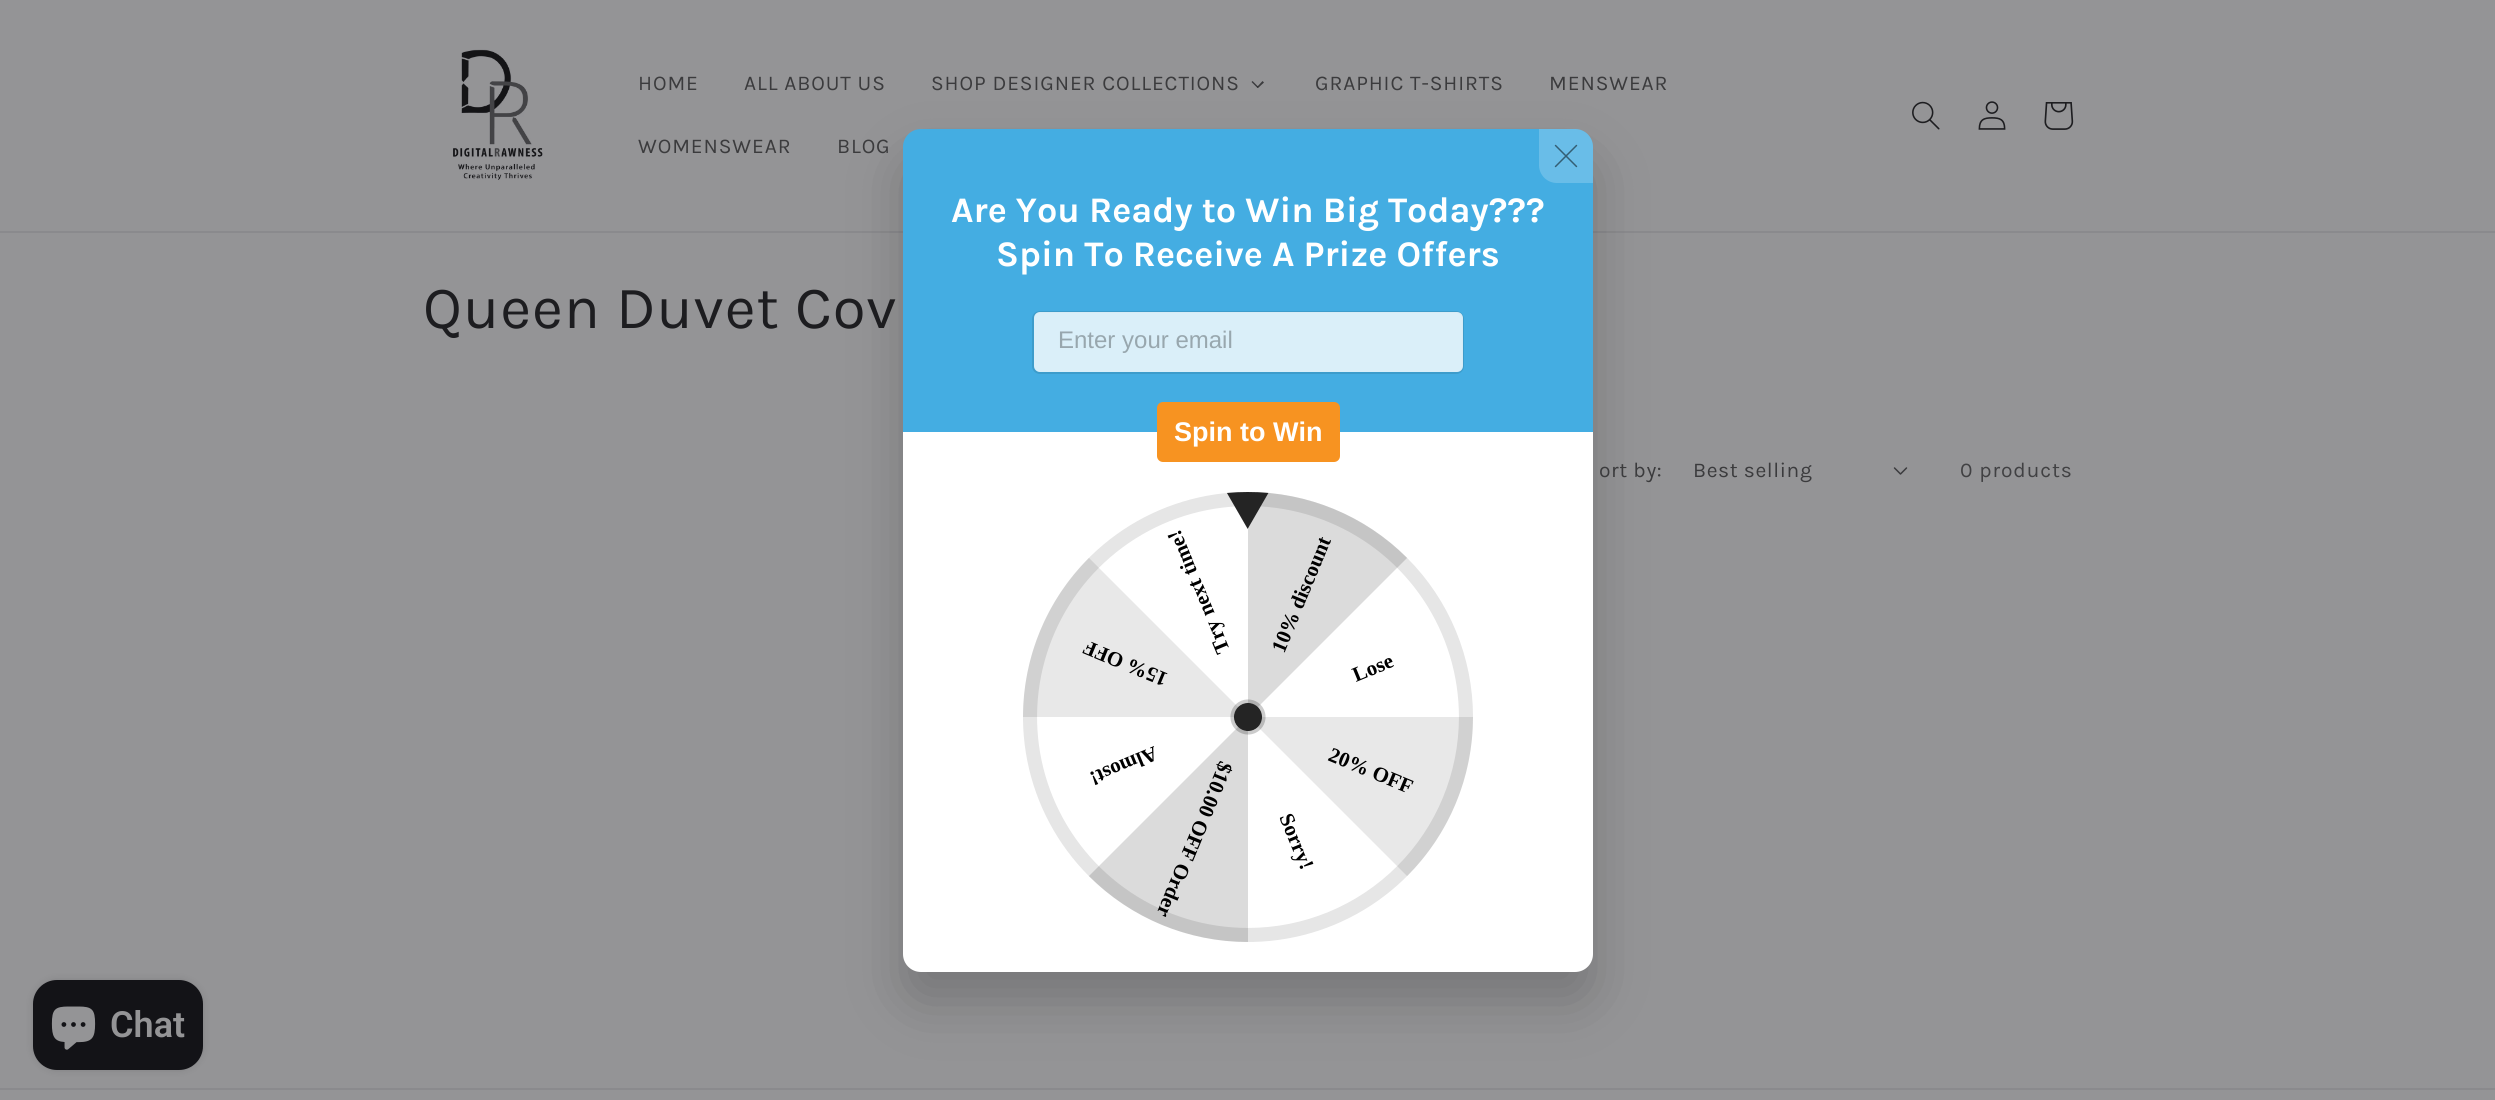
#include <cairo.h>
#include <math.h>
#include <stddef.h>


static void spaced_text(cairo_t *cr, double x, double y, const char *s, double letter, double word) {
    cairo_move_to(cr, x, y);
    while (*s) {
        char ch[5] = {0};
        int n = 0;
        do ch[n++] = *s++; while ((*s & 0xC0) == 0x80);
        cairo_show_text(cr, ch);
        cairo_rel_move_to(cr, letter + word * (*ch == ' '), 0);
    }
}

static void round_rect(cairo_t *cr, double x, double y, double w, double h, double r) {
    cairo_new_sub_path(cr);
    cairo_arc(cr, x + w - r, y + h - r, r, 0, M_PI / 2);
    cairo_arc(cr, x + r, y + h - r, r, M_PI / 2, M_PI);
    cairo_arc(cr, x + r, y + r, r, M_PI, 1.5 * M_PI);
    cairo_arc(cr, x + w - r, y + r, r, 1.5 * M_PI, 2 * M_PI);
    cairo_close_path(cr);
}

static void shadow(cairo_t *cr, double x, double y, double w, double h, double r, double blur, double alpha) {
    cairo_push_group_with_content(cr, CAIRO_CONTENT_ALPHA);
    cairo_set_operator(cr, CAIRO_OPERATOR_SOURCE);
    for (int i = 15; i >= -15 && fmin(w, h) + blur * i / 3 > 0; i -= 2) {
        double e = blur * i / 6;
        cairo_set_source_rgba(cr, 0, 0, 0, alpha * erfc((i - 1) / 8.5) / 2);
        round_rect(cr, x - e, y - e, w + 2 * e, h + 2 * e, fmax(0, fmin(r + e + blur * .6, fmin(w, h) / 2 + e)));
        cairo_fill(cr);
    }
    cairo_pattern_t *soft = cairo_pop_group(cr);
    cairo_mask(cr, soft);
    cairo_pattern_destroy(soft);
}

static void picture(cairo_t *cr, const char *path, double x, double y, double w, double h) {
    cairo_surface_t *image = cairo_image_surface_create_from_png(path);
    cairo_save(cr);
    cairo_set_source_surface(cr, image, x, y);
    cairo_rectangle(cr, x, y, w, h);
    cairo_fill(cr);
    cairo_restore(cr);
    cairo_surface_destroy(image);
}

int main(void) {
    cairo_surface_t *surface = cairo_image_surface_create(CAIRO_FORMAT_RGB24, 2495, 1100);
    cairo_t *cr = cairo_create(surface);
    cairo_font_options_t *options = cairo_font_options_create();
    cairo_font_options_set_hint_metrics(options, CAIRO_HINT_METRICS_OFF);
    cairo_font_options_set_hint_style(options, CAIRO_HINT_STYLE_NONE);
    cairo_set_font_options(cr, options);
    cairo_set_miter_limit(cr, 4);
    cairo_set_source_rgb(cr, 0.58, 0.58, 0.588);
    cairo_paint(cr);
    cairo_set_source_rgb(cr, 0.541, 0.541, 0.553);
    cairo_rectangle(cr, 0, 231, 2495, 2);
    cairo_fill(cr);
    picture(cr, "img1.png", 453, 49, 90, 131);
    cairo_select_font_face(cr, "Karla", CAIRO_FONT_SLANT_NORMAL, CAIRO_FONT_WEIGHT_NORMAL);
    cairo_set_font_size(cr, 21);
    cairo_set_source_rgb(cr, 0.231, 0.231, 0.239);
    spaced_text(cr, 638, 90, "HOME", 0.9, 0);
    spaced_text(cr, 744, 90, "ALL ABOUT US", 0.9, 0);
    spaced_text(cr, 931, 90, "SHOP DESIGNER COLLECTIONS", 0.9, 0);
    cairo_new_path(cr);
    cairo_move_to(cr, 1262.5, 81);
    cairo_line_to(cr, 1264, 82.5);
    cairo_line_to(cr, 1258, 88);
    cairo_line_to(cr, 1257, 87);
    cairo_close_path(cr);
    cairo_fill(cr);
    cairo_set_source_rgba(cr, 0.114, 0.114, 0.125, 0.75);
    cairo_new_path(cr);
    cairo_move_to(cr, 1252.5, 81);
    cairo_line_to(cr, 1258.5, 87);
    cairo_line_to(cr, 1257.5, 88);
    cairo_line_to(cr, 1251.5, 82);
    cairo_close_path(cr);
    cairo_fill(cr);
    cairo_set_source_rgb(cr, 0.231, 0.231, 0.239);
    spaced_text(cr, 1315, 90, "GRAPHIC T-SHIRTS", 0.9, 0);
    spaced_text(cr, 1549, 90, "MENSWEAR", 0.9, 0);
    spaced_text(cr, 638, 153, "WOMENSWEAR", 0.9, 0);
    spaced_text(cr, 837, 153, "BLOG", 0.9, 0);
    picture(cr, "img2.png", 1912, 101, 28, 29);
    picture(cr, "img3.png", 1978, 101, 28, 29);
    picture(cr, "img4.png", 2044, 102, 30, 28);
    cairo_set_source_rgb(cr, 0, 0, 0);
    shadow(cr, 903, 159, 690, 843, 18, 27, 0.2);
    cairo_set_source_rgb(cr, 0.267, 0.678, 0.886);
    cairo_new_path(cr);
    cairo_move_to(cr, 921, 129);
    cairo_line_to(cr, 1575, 129);
    cairo_curve_to(cr, 1585, 129, 1593, 137, 1593, 147);
    cairo_line_to(cr, 1593, 432);
    cairo_line_to(cr, 903, 432);
    cairo_line_to(cr, 903, 147);
    cairo_curve_to(cr, 903, 137, 911, 129, 921, 129);
    cairo_close_path(cr);
    cairo_fill(cr);
    cairo_set_source_rgba(cr, 1, 1, 1, 0.2);
    cairo_new_path(cr);
    cairo_move_to(cr, 1539, 129);
    cairo_line_to(cr, 1575, 129);
    cairo_curve_to(cr, 1585, 129, 1593, 137, 1593, 147);
    cairo_line_to(cr, 1593, 183);
    cairo_line_to(cr, 1557, 183);
    cairo_curve_to(cr, 1547, 183, 1539, 175, 1539, 165);
    cairo_close_path(cr);
    cairo_fill(cr);
    picture(cr, "img5.png", 1554, 144, 24, 24);
    cairo_select_font_face(cr, "Karla", CAIRO_FONT_SLANT_NORMAL, CAIRO_FONT_WEIGHT_BOLD);
    cairo_set_font_size(cr, 36);
    cairo_set_source_rgb(cr, 1, 1, 1);
    cairo_move_to(cr, 951, 222);
    cairo_show_text(cr, "Are You Ready to Win Big Today?\077?");
    cairo_move_to(cr, 996, 266);
    cairo_show_text(cr, "Spin To Receive A Prize Offers");
    round_rect(cr, 1033, 312, 430, 61, 7);
    cairo_set_source_rgb(cr, 0.239, 0.612, 0.796);
    cairo_stroke(cr);
    cairo_set_source_rgba(cr, 1, 1, 1, 0.8);
    round_rect(cr, 1034, 312, 429, 60, 6);
    cairo_fill(cr);
    cairo_select_font_face(cr, "Liberation Sans", CAIRO_FONT_SLANT_NORMAL, CAIRO_FONT_WEIGHT_NORMAL);
    cairo_set_font_size(cr, 24);
    cairo_set_source_rgb(cr, 0.596, 0.655, 0.682);
    cairo_move_to(cr, 1058, 348);
    cairo_show_text(cr, "Enter your email");
    cairo_set_source_rgb(cr, 1, 1, 1);
    cairo_new_path(cr);
    cairo_move_to(cr, 903, 432);
    cairo_line_to(cr, 1593, 432);
    cairo_line_to(cr, 1593, 954);
    cairo_curve_to(cr, 1593, 964, 1585, 972, 1575, 972);
    cairo_line_to(cr, 921, 972);
    cairo_curve_to(cr, 911, 972, 903, 964, 903, 954);
    cairo_close_path(cr);
    cairo_fill(cr);
    cairo_set_source_rgb(cr, 0.965, 0.576, 0.129);
    round_rect(cr, 1157, 402, 183, 60, 6);
    cairo_fill(cr);
    cairo_select_font_face(cr, "Liberation Sans", CAIRO_FONT_SLANT_NORMAL, CAIRO_FONT_WEIGHT_BOLD);
    cairo_set_font_size(cr, 27);
    cairo_set_source_rgb(cr, 1, 1, 1);
    cairo_move_to(cr, 1174, 441);
    cairo_show_text(cr, "Spin to Win");
    picture(cr, "img6.png", 1023, 492, 450, 450);
    cairo_select_font_face(cr, "Liberation Serif", CAIRO_FONT_SLANT_NORMAL, CAIRO_FONT_WEIGHT_BOLD);
    cairo_set_font_size(cr, 21);
    cairo_set_source_rgb(cr, 0, 0, 0);
    cairo_save(cr);
    cairo_translate(cr, 1230, 650);
    cairo_rotate(cr, -112.5 * M_PI / 180);
    spaced_text(cr, 0, 0, "Try next time!", 0, 1);
    cairo_restore(cr);
    cairo_save(cr);
    cairo_translate(cr, 1284, 654);
    cairo_rotate(cr, -67.5 * M_PI / 180);
    cairo_move_to(cr, 0, 0);
    cairo_show_text(cr, "10% discount");
    cairo_restore(cr);
    cairo_save(cr);
    cairo_translate(cr, 1169, 674);
    cairo_rotate(cr, -157.5 * M_PI / 180);
    cairo_move_to(cr, 0, 0);
    cairo_show_text(cr, "15% OFF");
    cairo_restore(cr);
    cairo_save(cr);
    cairo_translate(cr, 1356, 682);
    cairo_rotate(cr, -22.4 * M_PI / 180);
    cairo_move_to(cr, 0, 0);
    cairo_show_text(cr, "Lose");
    cairo_restore(cr);
    cairo_save(cr);
    cairo_translate(cr, 1154, 746);
    cairo_rotate(cr, 157.5 * M_PI / 180);
    cairo_move_to(cr, 0, 0);
    cairo_show_text(cr, "Almost!");
    cairo_restore(cr);
    cairo_save(cr);
    cairo_translate(cr, 1220, 760);
    cairo_rotate(cr, 112.5 * M_PI / 180);
    cairo_move_to(cr, 0, 0);
    cairo_show_text(cr, "$10.00 OFF Order");
    cairo_restore(cr);
    cairo_save(cr);
    cairo_translate(cr, 1279, 817);
    cairo_rotate(cr, 67.5 * M_PI / 180);
    cairo_move_to(cr, 0, 0);
    cairo_show_text(cr, "Sorry!");
    cairo_restore(cr);
    cairo_save(cr);
    cairo_translate(cr, 1327, 760);
    cairo_rotate(cr, 22.5 * M_PI / 180);
    cairo_move_to(cr, 0, 0);
    cairo_show_text(cr, "20% OFF");
    cairo_restore(cr);
    cairo_select_font_face(cr, "Karla", CAIRO_FONT_SLANT_NORMAL, CAIRO_FONT_WEIGHT_NORMAL);
    cairo_set_font_size(cr, 60);
    cairo_set_source_rgb(cr, 0.114, 0.114, 0.125);
    spaced_text(cr, 423, 328, "Queen Duvet Cov", 0.9, 0);
    cairo_set_font_size(cr, 21);
    cairo_set_source_rgb(cr, 0.231, 0.231, 0.239);
    spaced_text(cr, 1599, 477, "ort by:", 0.6, 0);
    spaced_text(cr, 1693, 477, "Best selling", 0.6, 0);
    picture(cr, "img7.png", 1893, 467, 15, 8);
    cairo_set_source_rgb(cr, 0.255, 0.255, 0.263);
    spaced_text(cr, 1960, 477, "0 products", 0.9, 0);
    cairo_set_source_rgb(cr, 0.078, 0.078, 0.09);
    shadow(cr, 33, 980, 170, 90, 24, 4, 0.15);
    cairo_set_source_rgb(cr, 0.078, 0.078, 0.09);
    round_rect(cr, 33, 980, 170, 90, 24);
    cairo_fill(cr);
    picture(cr, "img8.png", 51, 1006, 45, 44);
    cairo_select_font_face(cr, "Roboto SemiBold", CAIRO_FONT_SLANT_NORMAL, CAIRO_FONT_WEIGHT_NORMAL);
    cairo_set_font_size(cr, 36);
    cairo_set_source_rgb(cr, 0.58, 0.58, 0.588);
    cairo_move_to(cr, 110, 1037);
    cairo_show_text(cr, "Chat");
    cairo_set_source_rgb(cr, 0.541, 0.541, 0.553);
    cairo_rectangle(cr, 0, 1088, 2495, 2);
    cairo_fill(cr);
    cairo_surface_write_to_png(surface, "page.png");
    cairo_font_options_destroy(options);
    cairo_destroy(cr);
    cairo_surface_destroy(surface);
    return 0;
}
